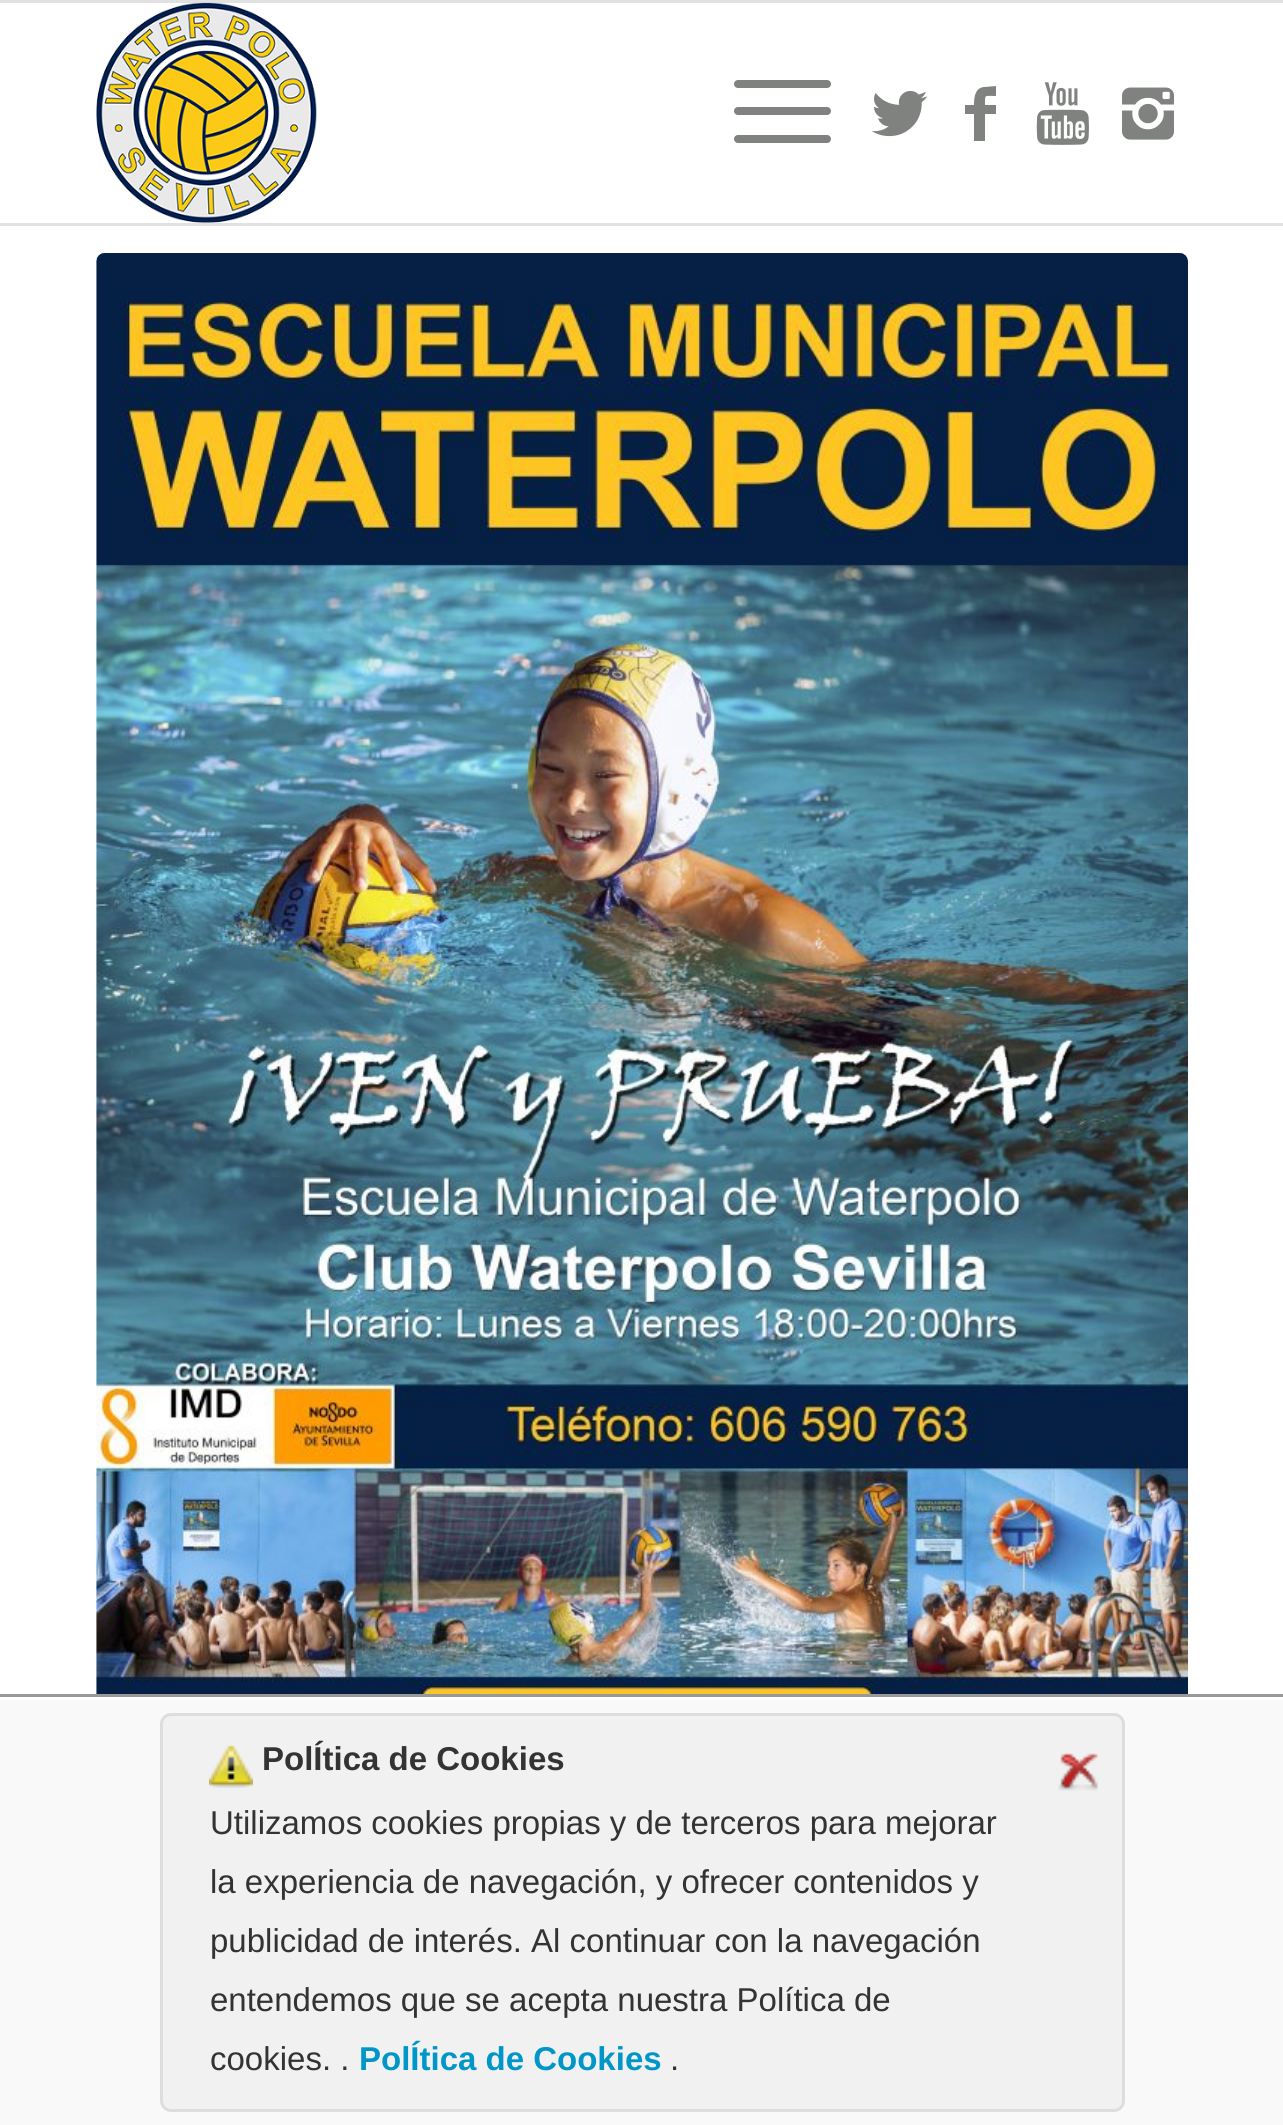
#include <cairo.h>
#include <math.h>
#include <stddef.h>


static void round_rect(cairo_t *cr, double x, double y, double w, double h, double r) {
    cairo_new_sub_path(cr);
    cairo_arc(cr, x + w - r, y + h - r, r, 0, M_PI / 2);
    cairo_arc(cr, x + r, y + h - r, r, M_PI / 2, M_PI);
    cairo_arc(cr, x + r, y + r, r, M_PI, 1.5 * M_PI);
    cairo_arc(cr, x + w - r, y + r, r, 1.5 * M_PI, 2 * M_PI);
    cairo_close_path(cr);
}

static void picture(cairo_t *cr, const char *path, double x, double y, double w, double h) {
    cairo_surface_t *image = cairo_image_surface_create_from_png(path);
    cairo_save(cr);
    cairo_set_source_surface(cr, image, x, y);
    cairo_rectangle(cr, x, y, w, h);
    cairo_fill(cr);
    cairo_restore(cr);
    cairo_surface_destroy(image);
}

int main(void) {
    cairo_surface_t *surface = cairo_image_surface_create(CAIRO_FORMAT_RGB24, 1283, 2125);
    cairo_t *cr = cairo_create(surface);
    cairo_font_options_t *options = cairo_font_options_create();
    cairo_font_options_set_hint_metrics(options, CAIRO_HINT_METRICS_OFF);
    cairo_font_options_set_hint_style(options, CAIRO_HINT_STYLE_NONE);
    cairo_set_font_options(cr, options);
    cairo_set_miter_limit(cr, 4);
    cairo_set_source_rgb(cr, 1, 1, 1);
    cairo_paint(cr);
    cairo_set_source_rgb(cr, 0.882, 0.882, 0.882);
    cairo_rectangle(cr, 0, 0, 1283, 3);
    cairo_fill(cr);
    cairo_rectangle(cr, 0, 223, 1283, 3);
    cairo_fill(cr);
    picture(cr, "img1.png", 96, 2, 221, 221);
    cairo_set_source_rgb(cr, 0.502, 0.51, 0.502);
    round_rect(cr, 734, 107, 97, 8, 4);
    cairo_fill(cr);
    round_rect(cr, 734, 80, 97, 8, 4);
    cairo_fill(cr);
    round_rect(cr, 734, 135, 97, 8, 4);
    cairo_fill(cr);
    picture(cr, "img2.png", 872, 91, 56, 46);
    cairo_new_path(cr);
    cairo_move_to(cr, 996, 96);
    cairo_curve_to(cr, 984, 96, 985, 94, 985, 105);
    cairo_line_to(cr, 996, 105);
    cairo_line_to(cr, 996, 114);
    cairo_line_to(cr, 985, 114);
    cairo_line_to(cr, 985, 141);
    cairo_line_to(cr, 974, 141);
    cairo_line_to(cr, 974, 114);
    cairo_line_to(cr, 965, 114);
    cairo_line_to(cr, 965, 105);
    cairo_line_to(cr, 974, 105);
    cairo_curve_to(cr, 974, 97, 975, 88, 984, 87);
    cairo_line_to(cr, 996, 86);
    cairo_close_path(cr);
    cairo_fill(cr);
    picture(cr, "img3.png", 1036, 82, 53, 63);
    picture(cr, "img4.png", 1122, 87, 52, 53);
    picture(cr, "img5.png", 96, 253, 1092, 1441);
    cairo_set_source_rgb(cr, 0.6, 0.6, 0.6);
    cairo_rectangle(cr, 0, 1694, 1283, 3);
    cairo_fill(cr);
    cairo_set_source_rgb(cr, 0.973, 0.973, 0.973);
    cairo_rectangle(cr, 0, 1700, 1283, 425);
    cairo_fill(cr);
    cairo_set_source_rgb(cr, 0.945, 0.945, 0.945);
    round_rect(cr, 161.5, 1714.5, 962, 396, 9.5);
    cairo_fill_preserve(cr);
    cairo_set_source_rgb(cr, 0.867, 0.867, 0.867);
    cairo_set_line_width(cr, 3);
    cairo_stroke(cr);
    picture(cr, "img6.png", 209, 1745, 44, 43);
    cairo_select_font_face(cr, "Liberation Sans", CAIRO_FONT_SLANT_NORMAL, CAIRO_FONT_WEIGHT_BOLD);
    cairo_set_font_size(cr, 33);
    cairo_set_source_rgb(cr, 0.2, 0.2, 0.2);
    cairo_move_to(cr, 262, 1770);
    cairo_show_text(cr, "PolÍtica de Cookies");
    picture(cr, "img7.png", 1058, 1753, 40, 38);
    cairo_select_font_face(cr, "Liberation Sans", CAIRO_FONT_SLANT_NORMAL, CAIRO_FONT_WEIGHT_NORMAL);
    cairo_move_to(cr, 210, 1834);
    cairo_show_text(cr, "Utilizamos cookies propias y de terceros para mejorar");
    cairo_move_to(cr, 210, 1893);
    cairo_show_text(cr, "la experiencia de navegación, y ofrecer contenidos y");
    cairo_move_to(cr, 210, 1952);
    cairo_show_text(cr, "publicidad de interés. Al continuar con la navegación");
    cairo_move_to(cr, 210, 2011);
    cairo_show_text(cr, "entendemos que se acepta nuestra Política de");
    cairo_move_to(cr, 210, 2070);
    cairo_show_text(cr, "cookies. .");
    cairo_select_font_face(cr, "Liberation Sans", CAIRO_FONT_SLANT_NORMAL, CAIRO_FONT_WEIGHT_BOLD);
    cairo_set_source_rgb(cr, 0, 0.592, 0.784);
    cairo_move_to(cr, 359, 2070);
    cairo_show_text(cr, "PolÍtica de Cookies");
    cairo_select_font_face(cr, "Liberation Sans", CAIRO_FONT_SLANT_NORMAL, CAIRO_FONT_WEIGHT_NORMAL);
    cairo_set_source_rgb(cr, 0.2, 0.2, 0.2);
    cairo_move_to(cr, 670, 2070);
    cairo_show_text(cr, ".");
    cairo_surface_write_to_png(surface, "page.png");
    cairo_font_options_destroy(options);
    cairo_destroy(cr);
    cairo_surface_destroy(surface);
    return 0;
}
